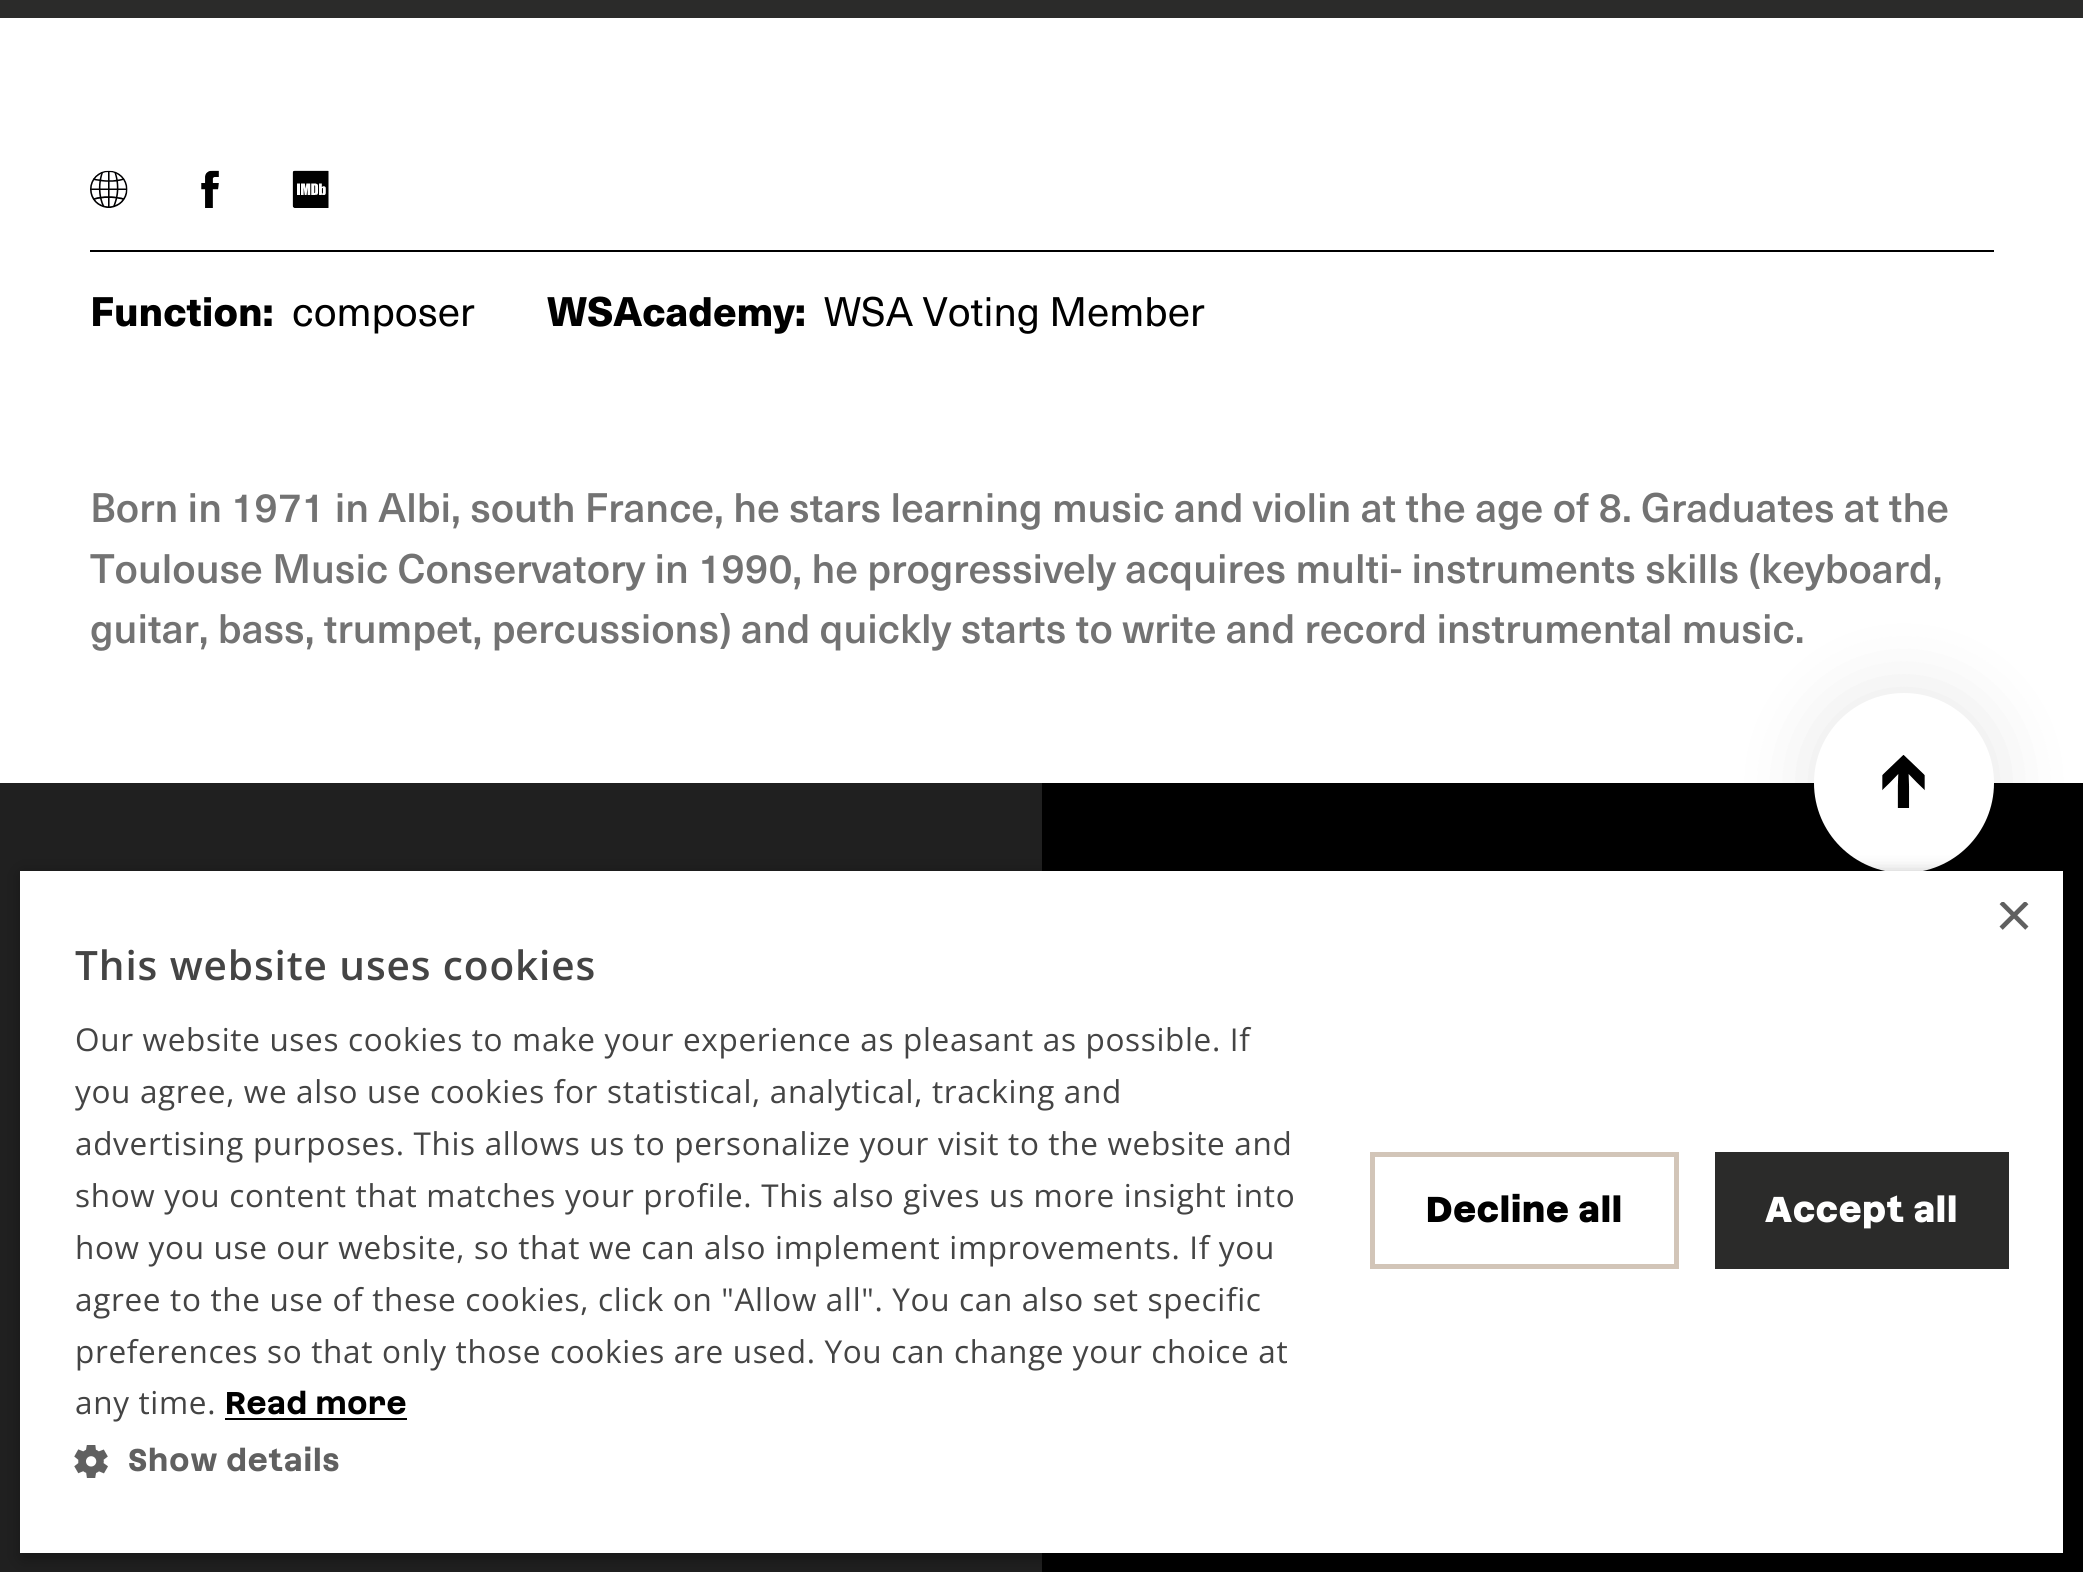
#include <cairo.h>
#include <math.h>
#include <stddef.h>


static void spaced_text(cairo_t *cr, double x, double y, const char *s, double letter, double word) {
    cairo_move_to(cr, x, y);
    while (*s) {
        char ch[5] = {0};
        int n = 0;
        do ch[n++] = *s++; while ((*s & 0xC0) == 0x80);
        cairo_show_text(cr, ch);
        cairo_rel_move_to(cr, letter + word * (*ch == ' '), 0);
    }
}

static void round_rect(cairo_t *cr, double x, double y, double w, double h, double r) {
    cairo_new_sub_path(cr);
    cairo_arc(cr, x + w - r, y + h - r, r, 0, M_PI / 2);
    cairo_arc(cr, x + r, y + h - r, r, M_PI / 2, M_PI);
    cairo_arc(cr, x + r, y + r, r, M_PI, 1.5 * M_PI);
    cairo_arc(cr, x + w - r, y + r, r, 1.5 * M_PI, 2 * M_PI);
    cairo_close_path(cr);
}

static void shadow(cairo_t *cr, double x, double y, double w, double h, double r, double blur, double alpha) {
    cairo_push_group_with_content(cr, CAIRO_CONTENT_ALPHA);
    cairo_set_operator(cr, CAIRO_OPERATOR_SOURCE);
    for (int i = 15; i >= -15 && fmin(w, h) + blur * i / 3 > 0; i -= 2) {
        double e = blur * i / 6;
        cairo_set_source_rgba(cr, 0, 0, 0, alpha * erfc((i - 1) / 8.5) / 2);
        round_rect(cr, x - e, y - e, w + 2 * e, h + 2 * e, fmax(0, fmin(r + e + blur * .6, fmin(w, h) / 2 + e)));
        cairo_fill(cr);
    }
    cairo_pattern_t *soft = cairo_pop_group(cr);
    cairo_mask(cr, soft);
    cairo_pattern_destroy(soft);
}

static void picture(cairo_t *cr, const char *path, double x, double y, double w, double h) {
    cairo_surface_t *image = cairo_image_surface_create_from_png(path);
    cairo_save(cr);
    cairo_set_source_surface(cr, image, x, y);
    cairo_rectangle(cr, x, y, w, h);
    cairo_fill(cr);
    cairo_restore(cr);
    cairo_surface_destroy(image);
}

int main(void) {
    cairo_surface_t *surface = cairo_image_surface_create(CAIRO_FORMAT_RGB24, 2083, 1572);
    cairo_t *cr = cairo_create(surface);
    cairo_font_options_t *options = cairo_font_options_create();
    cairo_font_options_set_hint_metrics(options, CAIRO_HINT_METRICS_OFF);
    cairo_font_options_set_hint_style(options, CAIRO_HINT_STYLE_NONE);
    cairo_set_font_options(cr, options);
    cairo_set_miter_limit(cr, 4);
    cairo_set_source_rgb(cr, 1, 1, 1);
    cairo_paint(cr);
    cairo_set_source_rgb(cr, 0.169, 0.169, 0.165);
    cairo_rectangle(cr, 0, 0, 2083, 18);
    cairo_fill(cr);
    picture(cr, "img1.png", 90, 170, 38, 38);
    picture(cr, "img2.png", 201, 170, 18, 38);
    picture(cr, "img3.png", 292, 170, 37, 38);
    cairo_set_source_rgb(cr, 0, 0, 0);
    cairo_rectangle(cr, 90, 250, 1904, 2);
    cairo_fill(cr);
    cairo_select_font_face(cr, "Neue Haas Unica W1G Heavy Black", CAIRO_FONT_SLANT_NORMAL, CAIRO_FONT_WEIGHT_NORMAL);
    cairo_set_font_size(cr, 40.5);
    cairo_move_to(cr, 90, 326);
    cairo_show_text(cr, "Function:");
    cairo_select_font_face(cr, "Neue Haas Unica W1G", CAIRO_FONT_SLANT_NORMAL, CAIRO_FONT_WEIGHT_NORMAL);
    cairo_move_to(cr, 292, 326);
    cairo_show_text(cr, "composer");
    cairo_select_font_face(cr, "Neue Haas Unica W1G Heavy Black", CAIRO_FONT_SLANT_NORMAL, CAIRO_FONT_WEIGHT_NORMAL);
    cairo_move_to(cr, 547, 326);
    cairo_show_text(cr, "WSAcademy:");
    cairo_select_font_face(cr, "Neue Haas Unica W1G", CAIRO_FONT_SLANT_NORMAL, CAIRO_FONT_WEIGHT_NORMAL);
    cairo_move_to(cr, 824, 326);
    cairo_show_text(cr, "WSA Voting Member");
    cairo_select_font_face(cr, "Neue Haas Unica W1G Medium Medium", CAIRO_FONT_SLANT_NORMAL, CAIRO_FONT_WEIGHT_NORMAL);
    cairo_set_source_rgb(cr, 0.451, 0.451, 0.451);
    cairo_move_to(cr, 90, 522);
    cairo_show_text(cr, "Born in 1971 in Albi, south France, he stars learning music and violin at the age of 8. Graduates at the");
    cairo_move_to(cr, 90, 583);
    cairo_show_text(cr, "Toulouse Music Conservatory in 1990, he progressively acquires multi- instruments skills (keyboard,");
    cairo_move_to(cr, 90, 643);
    cairo_show_text(cr, "guitar, bass, trumpet, percussions) and quickly starts to write and record instrumental music.");
    cairo_set_source_rgb(cr, 0, 0, 0);
    cairo_rectangle(cr, 1042, 783, 1041, 789);
    cairo_fill(cr);
    cairo_set_source_rgb(cr, 0.125, 0.125, 0.125);
    cairo_rectangle(cr, 0, 783, 1042, 789);
    cairo_fill(cr);
    cairo_set_source_rgb(cr, 0, 0, 0);
    shadow(cr, 1814, 693, 180, 180, 90, 38, 0.1);
    cairo_set_source_rgb(cr, 1, 1, 1);
    cairo_arc(cr, 1904, 783, 90, 0, 2 * M_PI);
    cairo_fill(cr);
    picture(cr, "img4.png", 1882, 755, 43, 53);
    cairo_set_source_rgb(cr, 0, 0, 0);
    shadow(cr, 23, 875, 2043, 682, 0, 9, 0.35);
    cairo_set_source_rgb(cr, 1, 1, 1);
    cairo_rectangle(cr, 20, 871, 2043, 682);
    cairo_fill(cr);
    cairo_save(cr);
    cairo_rectangle(cr, 1996, 902, 34, 34);
    cairo_clip(cr);
    cairo_select_font_face(cr, "Liberation Sans", CAIRO_FONT_SLANT_NORMAL, CAIRO_FONT_WEIGHT_NORMAL);
    cairo_set_font_size(cr, 65);
    cairo_set_source_rgb(cr, 0.376, 0.376, 0.376);
    cairo_move_to(cr, 1995, 937);
    cairo_show_text(cr, "×");
    cairo_restore(cr);
    cairo_select_font_face(cr, "Open Sans SemiBold", CAIRO_FONT_SLANT_NORMAL, CAIRO_FONT_WEIGHT_NORMAL);
    cairo_set_source_rgb(cr, 0.267, 0.267, 0.267);
    spaced_text(cr, 75, 980, "This website uses cookies", 0.9, 0);
    cairo_select_font_face(cr, "Open Sans", CAIRO_FONT_SLANT_NORMAL, CAIRO_FONT_WEIGHT_NORMAL);
    cairo_set_font_size(cr, 31.5);
    spaced_text(cr, 75, 1051, "Our website uses cookies to make your experience as pleasant as possible. If", 0.67, 0);
    spaced_text(cr, 75, 1103, "you agree, we also use cookies for statistical, analytical, tracking and", 0.67, 0);
    spaced_text(cr, 75, 1155, "advertising purposes. This allows us to personalize your visit to the website and", 0.67, 0);
    spaced_text(cr, 75, 1207, "show you content that matches your profile. This also gives us more insight into", 0.67, 0);
    spaced_text(cr, 75, 1259, "how you use our website, so that we can also implement improvements. If you", 0.67, 0);
    spaced_text(cr, 75, 1311, "agree to the use of these cookies, click on \"Allow all\". You can also set specific", 0.67, 0);
    spaced_text(cr, 75, 1363, "preferences so that only those cookies are used. You can change your choice at", 0.67, 0);
    spaced_text(cr, 75, 1414, "any time.", 0.67, 0);
    cairo_select_font_face(cr, "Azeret", CAIRO_FONT_SLANT_NORMAL, CAIRO_FONT_WEIGHT_BOLD);
    cairo_set_source_rgb(cr, 0, 0, 0);
    spaced_text(cr, 225, 1414, "Read more", 0.67, 0);
    cairo_rectangle(cr, 225, 1418, 182, 2);
    cairo_fill(cr);
    picture(cr, "img5.png", 74, 1445, 34, 33);
    cairo_set_source_rgb(cr, 0.376, 0.376, 0.376);
    spaced_text(cr, 128, 1471, "Show details", 0.9, 0);
    cairo_rectangle(cr, 1372.5, 1154.5, 304, 112);
    cairo_set_source_rgb(cr, 0.824, 0.773, 0.722);
    cairo_set_line_width(cr, 5);
    cairo_stroke(cr);
    cairo_select_font_face(cr, "Azeret ExtraBold", CAIRO_FONT_SLANT_NORMAL, CAIRO_FONT_WEIGHT_NORMAL);
    cairo_set_font_size(cr, 36);
    cairo_set_source_rgb(cr, 0, 0, 0);
    spaced_text(cr, 1426, 1222, "Decline all", 0.9, 0);
    cairo_set_source_rgb(cr, 0.169, 0.169, 0.165);
    cairo_rectangle(cr, 1715, 1152, 294, 117);
    cairo_fill(cr);
    cairo_set_source_rgb(cr, 1, 1, 1);
    spaced_text(cr, 1765, 1222, "Accept all", 0.9, 0);
    cairo_surface_write_to_png(surface, "page.png");
    cairo_font_options_destroy(options);
    cairo_destroy(cr);
    cairo_surface_destroy(surface);
    return 0;
}
